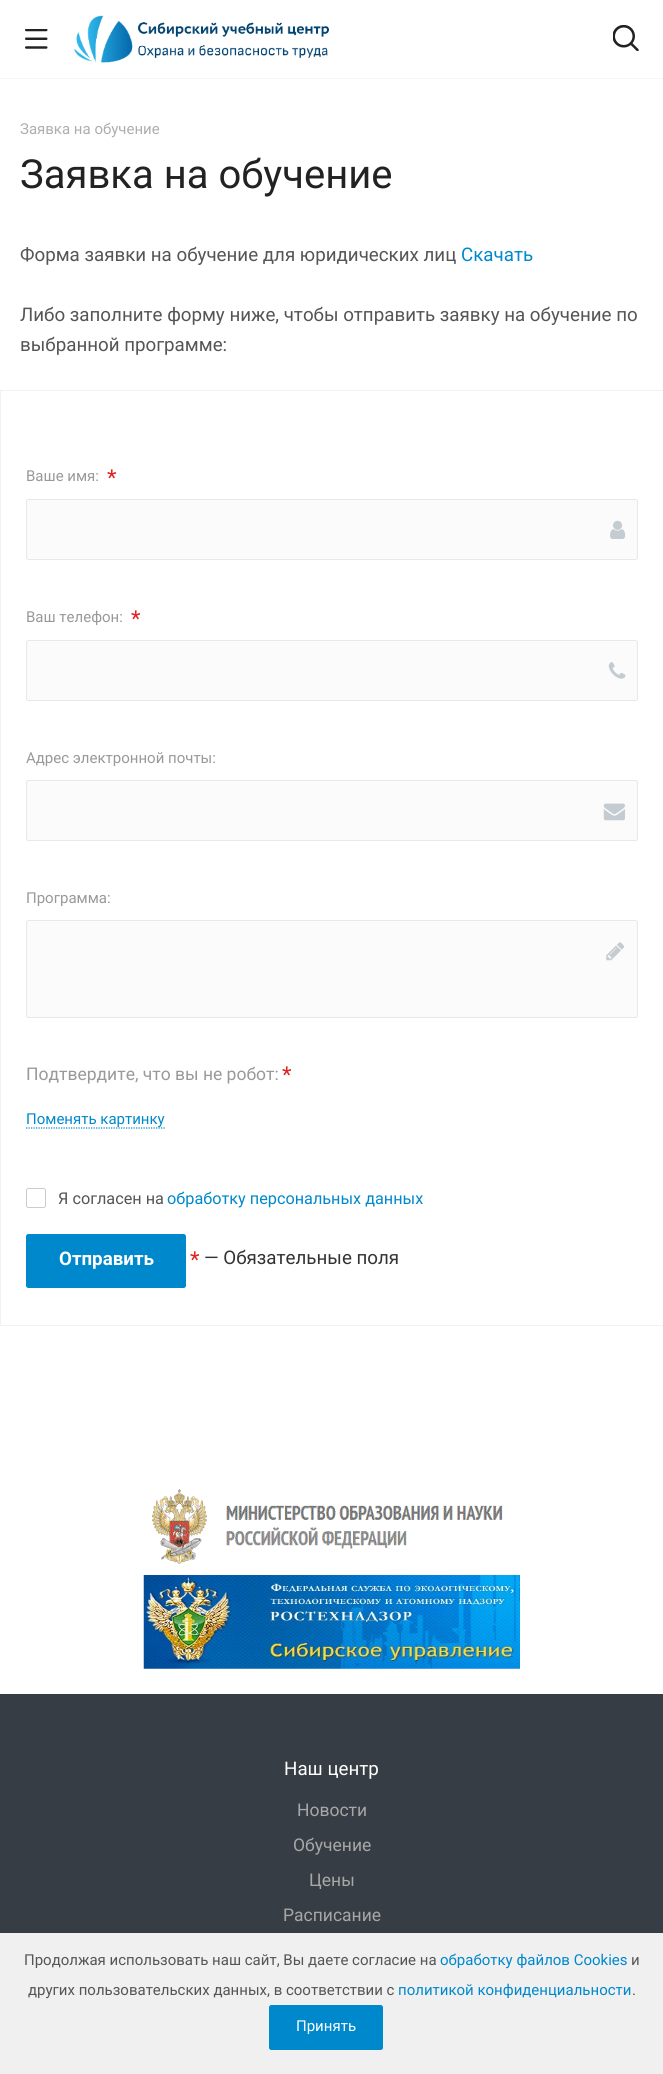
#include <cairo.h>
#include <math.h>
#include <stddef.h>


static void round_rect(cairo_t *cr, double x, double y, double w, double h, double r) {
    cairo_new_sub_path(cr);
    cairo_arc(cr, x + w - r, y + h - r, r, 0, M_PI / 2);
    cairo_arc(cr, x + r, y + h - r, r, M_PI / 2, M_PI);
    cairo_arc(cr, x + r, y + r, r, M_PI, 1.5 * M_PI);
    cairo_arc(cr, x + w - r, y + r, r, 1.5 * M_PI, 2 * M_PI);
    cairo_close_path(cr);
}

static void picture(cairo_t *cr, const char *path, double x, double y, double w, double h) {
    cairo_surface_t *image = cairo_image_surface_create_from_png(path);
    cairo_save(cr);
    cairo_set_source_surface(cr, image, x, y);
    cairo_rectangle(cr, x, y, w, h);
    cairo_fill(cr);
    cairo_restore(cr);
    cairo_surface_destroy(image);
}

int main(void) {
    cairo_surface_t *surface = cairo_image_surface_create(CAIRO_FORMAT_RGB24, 663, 2074);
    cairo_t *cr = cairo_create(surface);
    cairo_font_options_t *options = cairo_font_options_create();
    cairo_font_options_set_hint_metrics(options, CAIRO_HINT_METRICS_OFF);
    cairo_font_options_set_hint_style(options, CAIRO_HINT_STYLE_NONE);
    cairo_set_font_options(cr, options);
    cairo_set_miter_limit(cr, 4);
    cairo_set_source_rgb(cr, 1, 1, 1);
    cairo_paint(cr);
    cairo_set_source_rgb(cr, 0.961, 0.961, 0.961);
    cairo_rectangle(cr, 0, 78, 663, 1);
    cairo_fill(cr);
    picture(cr, "img1.png", 25, 29, 23, 20);
    picture(cr, "img2.png", 74, 15, 255, 48);
    picture(cr, "img3.png", 613, 25, 26, 26);
    cairo_select_font_face(cr, "Roboto", CAIRO_FONT_SLANT_NORMAL, CAIRO_FONT_WEIGHT_NORMAL);
    cairo_set_font_size(cr, 15);
    cairo_set_source_rgb(cr, 0.682, 0.682, 0.682);
    cairo_move_to(cr, 20, 134);
    cairo_show_text(cr, "Заявка на обучение");
    cairo_set_font_size(cr, 40);
    cairo_set_source_rgb(cr, 0.133, 0.133, 0.133);
    cairo_move_to(cr, 20, 188);
    cairo_show_text(cr, "Заявка на обучение");
    cairo_set_font_size(cr, 18.75);
    cairo_set_source_rgb(cr, 0.333, 0.333, 0.333);
    cairo_move_to(cr, 20, 261);
    cairo_show_text(cr, "Форма заявки на обучение для юридических лиц");
    cairo_set_source_rgb(cr, 0, 0.533, 0.8);
    cairo_move_to(cr, 461, 261);
    cairo_show_text(cr, "Скачать");
    cairo_set_source_rgb(cr, 0.333, 0.333, 0.333);
    cairo_move_to(cr, 20, 321);
    cairo_show_text(cr, "Либо заполните форму ниже, чтобы отправить заявку на обучение по");
    cairo_move_to(cr, 20, 351);
    cairo_show_text(cr, "выбранной программе:");
    cairo_rectangle(cr, 0.5, 390.5, 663, 935);
    cairo_set_source_rgb(cr, 0.949, 0.949, 0.949);
    cairo_set_line_width(cr, 1);
    cairo_stroke(cr);
    cairo_set_font_size(cr, 15);
    cairo_set_source_rgb(cr, 0.6, 0.6, 0.6);
    cairo_move_to(cr, 26, 481);
    cairo_show_text(cr, "Ваше имя:");
    cairo_set_font_size(cr, 22);
    cairo_set_source_rgb(cr, 0.878, 0.133, 0.133);
    cairo_move_to(cr, 107, 485);
    cairo_show_text(cr, "*");
    cairo_set_source_rgb(cr, 0.984, 0.984, 0.984);
    round_rect(cr, 26.5, 499.5, 611, 60, 2);
    cairo_fill_preserve(cr);
    cairo_set_source_rgb(cr, 0.91, 0.91, 0.91);
    cairo_stroke(cr);
    picture(cr, "img4.png", 610, 520, 16, 19);
    cairo_set_font_size(cr, 15);
    cairo_set_source_rgb(cr, 0.6, 0.6, 0.6);
    cairo_move_to(cr, 26, 622);
    cairo_show_text(cr, "Ваш телефон:");
    cairo_set_font_size(cr, 22);
    cairo_set_source_rgb(cr, 0.878, 0.133, 0.133);
    cairo_move_to(cr, 131, 626);
    cairo_show_text(cr, "*");
    cairo_set_source_rgb(cr, 0.984, 0.984, 0.984);
    round_rect(cr, 26.5, 640.5, 611, 60, 2);
    cairo_fill_preserve(cr);
    cairo_set_source_rgb(cr, 0.91, 0.91, 0.91);
    cairo_stroke(cr);
    picture(cr, "img5.png", 608, 662, 18, 17);
    cairo_set_font_size(cr, 15);
    cairo_set_source_rgb(cr, 0.6, 0.6, 0.6);
    cairo_move_to(cr, 26, 763);
    cairo_show_text(cr, "Адрес электронной почты:");
    cairo_set_source_rgb(cr, 0.984, 0.984, 0.984);
    round_rect(cr, 26.5, 780.5, 611, 60, 2);
    cairo_fill_preserve(cr);
    cairo_set_source_rgb(cr, 0.91, 0.91, 0.91);
    cairo_stroke(cr);
    picture(cr, "img6.png", 603, 803, 22, 18);
    cairo_set_source_rgb(cr, 0.6, 0.6, 0.6);
    cairo_move_to(cr, 26, 903);
    cairo_show_text(cr, "Программа:");
    cairo_set_source_rgb(cr, 0.984, 0.984, 0.984);
    round_rect(cr, 26.5, 920.5, 611, 97, 2);
    cairo_fill_preserve(cr);
    cairo_set_source_rgb(cr, 0.91, 0.91, 0.91);
    cairo_stroke(cr);
    picture(cr, "img7.png", 606, 942, 19, 19);
    cairo_set_font_size(cr, 17.5);
    cairo_set_source_rgb(cr, 0.6, 0.6, 0.6);
    cairo_move_to(cr, 26, 1080);
    cairo_show_text(cr, "Подтвердите, что вы не робот:");
    cairo_set_font_size(cr, 22);
    cairo_set_source_rgb(cr, 0.878, 0.133, 0.133);
    cairo_move_to(cr, 282, 1082);
    cairo_show_text(cr, "*");
    cairo_new_path(cr);
    cairo_move_to(cr, 26, 1128);
    cairo_line_to(cr, 165, 1128);
    cairo_set_source_rgb(cr, 0, 0.533, 0.8);
    cairo_set_line_width(cr, 1.2);
    cairo_set_dash(cr, (double[]){1.25, 1.25}, 2, 0);
    cairo_stroke(cr);
    cairo_set_font_size(cr, 15);
    cairo_move_to(cr, 26, 1124);
    cairo_show_text(cr, "Поменять картинку");
    round_rect(cr, 26.5, 1188.5, 19, 19, 2);
    cairo_set_source_rgb(cr, 0.8, 0.8, 0.8);
    cairo_set_line_width(cr, 1);
    cairo_set_dash(cr, NULL, 0, 0);
    cairo_stroke(cr);
    cairo_set_font_size(cr, 16.25);
    cairo_set_source_rgb(cr, 0.333, 0.333, 0.333);
    cairo_move_to(cr, 58, 1204);
    cairo_show_text(cr, "Я согласен на");
    cairo_set_source_rgb(cr, 0, 0.533, 0.8);
    cairo_move_to(cr, 167, 1204);
    cairo_show_text(cr, "обработку персональных данных");
    round_rect(cr, 26.5, 1234.5, 159, 53, 2);
    cairo_fill_preserve(cr);
    cairo_stroke(cr);
    cairo_select_font_face(cr, "Roboto", CAIRO_FONT_SLANT_NORMAL, CAIRO_FONT_WEIGHT_BOLD);
    cairo_set_font_size(cr, 18.75);
    cairo_set_source_rgb(cr, 1, 1, 1);
    cairo_move_to(cr, 59, 1265);
    cairo_show_text(cr, "Отправить");
    cairo_select_font_face(cr, "Roboto", CAIRO_FONT_SLANT_NORMAL, CAIRO_FONT_WEIGHT_NORMAL);
    cairo_set_font_size(cr, 22);
    cairo_set_source_rgb(cr, 0.878, 0.133, 0.133);
    cairo_move_to(cr, 190, 1267);
    cairo_show_text(cr, "*");
    cairo_set_font_size(cr, 18.75);
    cairo_set_source_rgb(cr, 0.2, 0.2, 0.2);
    cairo_move_to(cr, 204, 1264);
    cairo_show_text(cr, "— Обязательные поля");
    picture(cr, "img8.png", 152, 1489, 351, 75);
    picture(cr, "img9.png", 143, 1575, 377, 94);
    cairo_set_source_rgb(cr, 0.216, 0.239, 0.267);
    cairo_rectangle(cr, 0, 1694, 663, 239);
    cairo_fill(cr);
    cairo_set_source_rgb(cr, 1, 1, 1);
    cairo_move_to(cr, 284, 1775);
    cairo_show_text(cr, "Наш центр");
    cairo_set_font_size(cr, 17.5);
    cairo_set_source_rgb(cr, 0.655, 0.655, 0.655);
    cairo_move_to(cr, 297, 1816);
    cairo_show_text(cr, "Новости");
    cairo_move_to(cr, 293, 1851);
    cairo_show_text(cr, "Обучение");
    cairo_move_to(cr, 309, 1886);
    cairo_show_text(cr, "Цены");
    cairo_move_to(cr, 283, 1921);
    cairo_show_text(cr, "Расписание");
    cairo_set_source_rgb(cr, 0.941, 0.941, 0.941);
    cairo_rectangle(cr, 0, 1933, 663, 141);
    cairo_fill(cr);
    cairo_set_font_size(cr, 15);
    cairo_set_source_rgb(cr, 0.333, 0.333, 0.333);
    cairo_move_to(cr, 24, 1965);
    cairo_show_text(cr, "Продолжая использовать наш сайт, Вы даете согласие на");
    cairo_set_source_rgb(cr, 0, 0.533, 0.8);
    cairo_move_to(cr, 440, 1965);
    cairo_show_text(cr, "обработку файлов Cookies");
    cairo_set_source_rgb(cr, 0.333, 0.333, 0.333);
    cairo_move_to(cr, 631, 1965);
    cairo_show_text(cr, "и");
    cairo_move_to(cr, 28, 1995);
    cairo_show_text(cr, "других пользовательских данных, в соответствии с");
    cairo_set_source_rgb(cr, 0, 0.533, 0.8);
    cairo_move_to(cr, 398, 1995);
    cairo_show_text(cr, "политикой конфиденциальности");
    cairo_set_source_rgb(cr, 0.333, 0.333, 0.333);
    cairo_move_to(cr, 632, 1995);
    cairo_show_text(cr, ".");
    cairo_set_source_rgb(cr, 0, 0.533, 0.8);
    round_rect(cr, 269.5, 2005.5, 113, 44, 2);
    cairo_fill_preserve(cr);
    cairo_stroke(cr);
    cairo_set_source_rgb(cr, 1, 1, 1);
    cairo_move_to(cr, 296, 2031);
    cairo_show_text(cr, "Принять");
    cairo_surface_write_to_png(surface, "page.png");
    cairo_font_options_destroy(options);
    cairo_destroy(cr);
    cairo_surface_destroy(surface);
    return 0;
}
